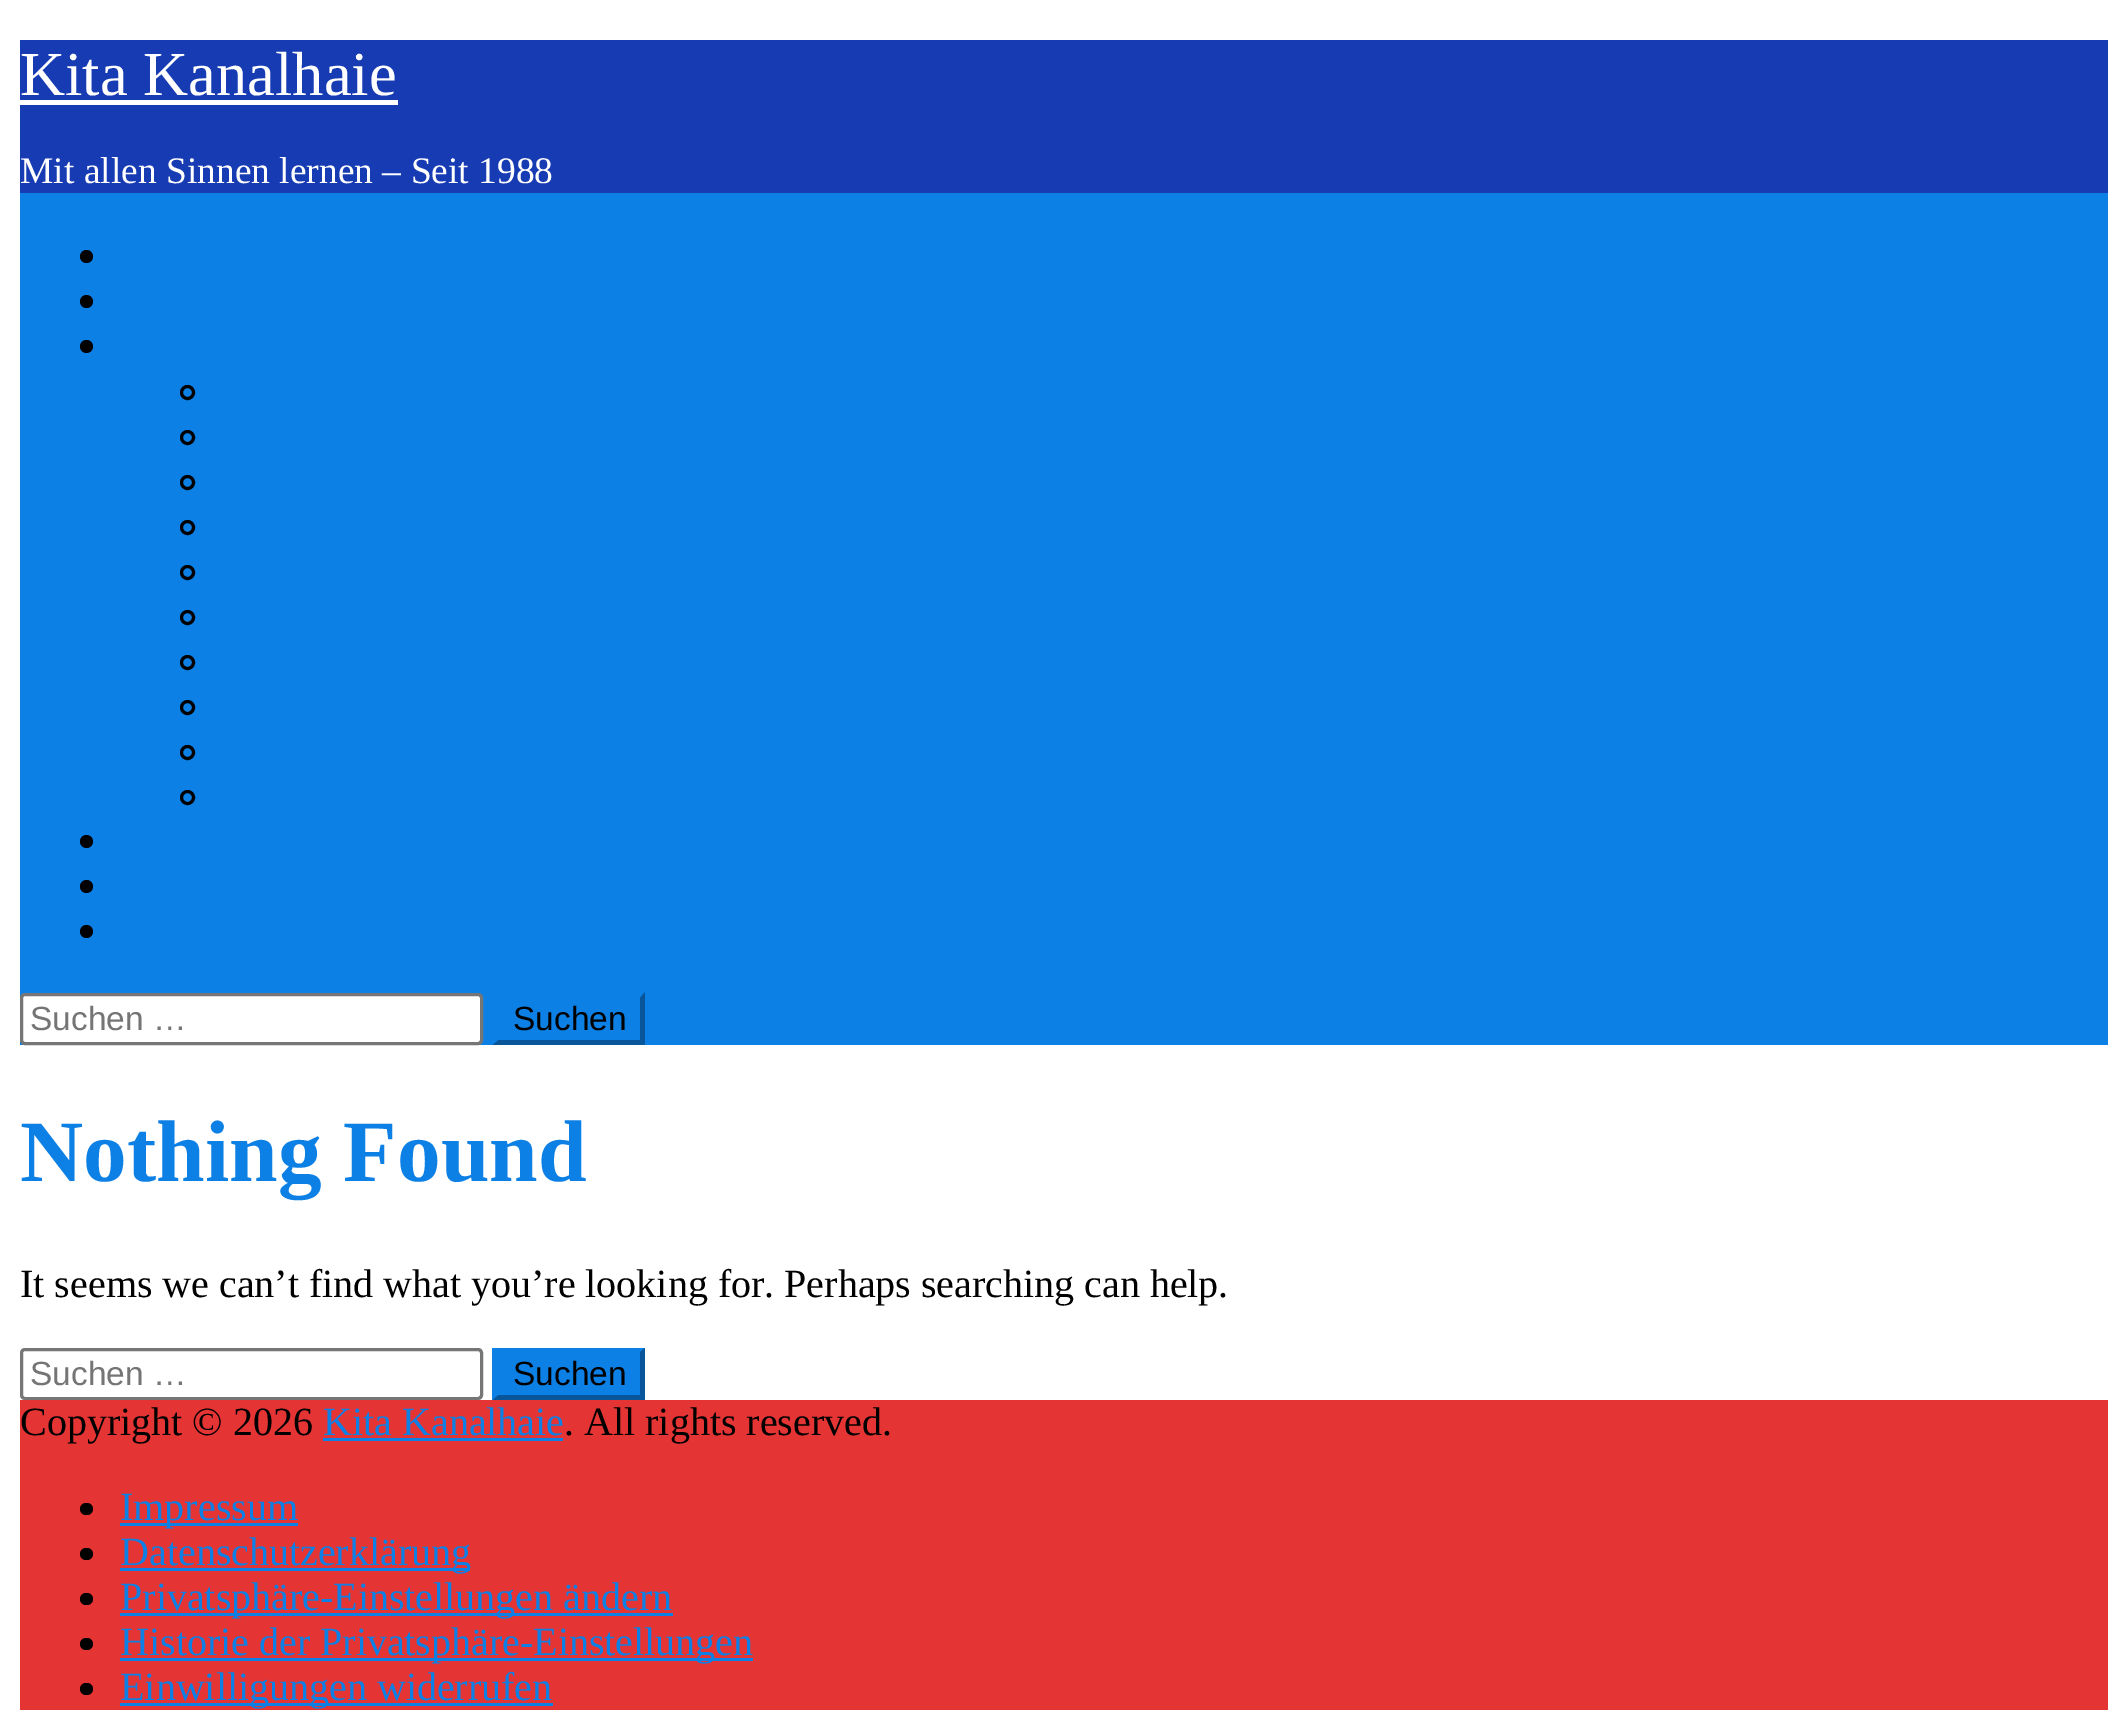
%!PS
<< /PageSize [2126 1722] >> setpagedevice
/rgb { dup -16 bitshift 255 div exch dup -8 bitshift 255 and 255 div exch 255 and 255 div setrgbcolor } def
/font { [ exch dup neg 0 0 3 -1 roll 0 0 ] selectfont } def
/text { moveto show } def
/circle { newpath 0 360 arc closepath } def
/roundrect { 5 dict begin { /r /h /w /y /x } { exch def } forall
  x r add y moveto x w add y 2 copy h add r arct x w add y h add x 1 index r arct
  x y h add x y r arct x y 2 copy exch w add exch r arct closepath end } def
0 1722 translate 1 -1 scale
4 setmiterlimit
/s1 { /LiberationSerif-Regular 62.5 font 16#FFFFFF rgb } def
/s2 { /LiberationSerif-Regular 37.5 font 16#FFFFFF rgb } def
/s3 { /LiberationSans-Regular 33.5 font 16#757575 rgb } def
/s4 { /LiberationSans-Regular 33.5 font 16#000000 rgb } def
/s5 { /LiberationSerif-Bold 87.5 font 16#0D80E5 rgb } def
/s6 { /LiberationSerif-Regular 40 font 16#000000 rgb } def
/s7 { /LiberationSerif-Regular 40 font 16#0D80E5 rgb } def
16#FFFFFF rgb
0 0 2126 1722 rectfill
16#0D80E5 rgb
20 193 2088 852 rectfill
16#173BB2 rgb
20 40 2088 153 rectfill
s1
(Kita Kanalhaie) 20 95 text
20 100 378 5 rectfill
s2
(Mit allen Sinnen lernen – Seit 1988) 20 183 text
16#000000 rgb
86.5 256.5 6.5 circle fill
86.5 301.5 6.5 circle fill
86.5 346.5 6.5 circle fill
3 setlinewidth
187.5 392.5 6 circle stroke
187.5 437.5 6 circle stroke
187.5 482.5 6 circle stroke
187.5 527.5 6 circle stroke
187.5 572.5 6 circle stroke
187.5 617.5 6 circle stroke
187.5 662.5 6 circle stroke
187.5 707.5 6 circle stroke
187.5 752.5 6 circle stroke
187.5 797.5 6 circle stroke
86.5 841.5 6.5 circle fill
86.5 886.5 6.5 circle fill
86.5 931.5 6.5 circle fill
16#FFFFFF rgb
21.5 994.5 460 49 3.5 roundrect gsave fill grestore
16#767676 rgb
stroke
s3
(Suchen …) 30 1030 text
16#095599 rgb
645 992 moveto 645 1045 lineto 640 1040 lineto 640 998 lineto closepath fill
645 1045 moveto 492 1045 lineto 498 1040 lineto 640 1040 lineto closepath fill
16#0D80E5 rgb
492 1045 moveto 492 992 lineto 498 998 lineto 498 1040 lineto closepath fill
s4
(Suchen) 513 1030 text
s5
(Nothing Found) 20 1181 text
s6
(It seems we can’t find what you’re looking for. Perhaps searching can help.) 20 1297 text
16#767676 rgb
21.5 1349.5 460 49 3.5 roundrect stroke
s3
(Suchen …) 30 1385 text
16#0D80E5 rgb
493 1348 152 52 rectfill
492 1348 moveto 645 1348 lineto 640 1352 lineto 498 1352 lineto closepath fill
16#095599 rgb
645 1348 moveto 645 1400 lineto 640 1395 lineto 640 1352 lineto closepath fill
645 1400 moveto 492 1400 lineto 498 1395 lineto 640 1395 lineto closepath fill
16#0D80E5 rgb
492 1400 moveto 492 1348 lineto 498 1352 lineto 498 1395 lineto closepath fill
s4
(Suchen) 513 1385 text
16#E53434 rgb
20 1400 2088 310 rectfill
s6
(Copyright © 2026) 20 1435 text
s7
(Kita Kanalhaie) 323 1435 text
323 1438 240 3 rectfill
s6
(. All rights reserved.) 564 1435 text
80 1503 13 12 6 roundrect fill
16#0D80E5 rgb
120 1523 178 3 rectfill
(Impressum) 120 1520 text
16#000000 rgb
80 1548 13 12 6 roundrect fill
16#0D80E5 rgb
120 1568 350 3 rectfill
(Datenschutzerklärung) 120 1565 text
16#000000 rgb
80 1593 13 12 6 roundrect fill
16#0D80E5 rgb
120 1613 553 3 rectfill
(Privatsphäre-Einstellungen ändern) 120 1610 text
16#000000 rgb
80 1638 13 12 6 roundrect fill
16#0D80E5 rgb
120 1658 633 3 rectfill
(Historie der Privatsphäre-Einstellungen) 120 1655 text
16#000000 rgb
80 1683 13 12 6 roundrect fill
16#0D80E5 rgb
120 1703 433 3 rectfill
(Einwilligungen widerrufen) 120 1700 text
showpage
